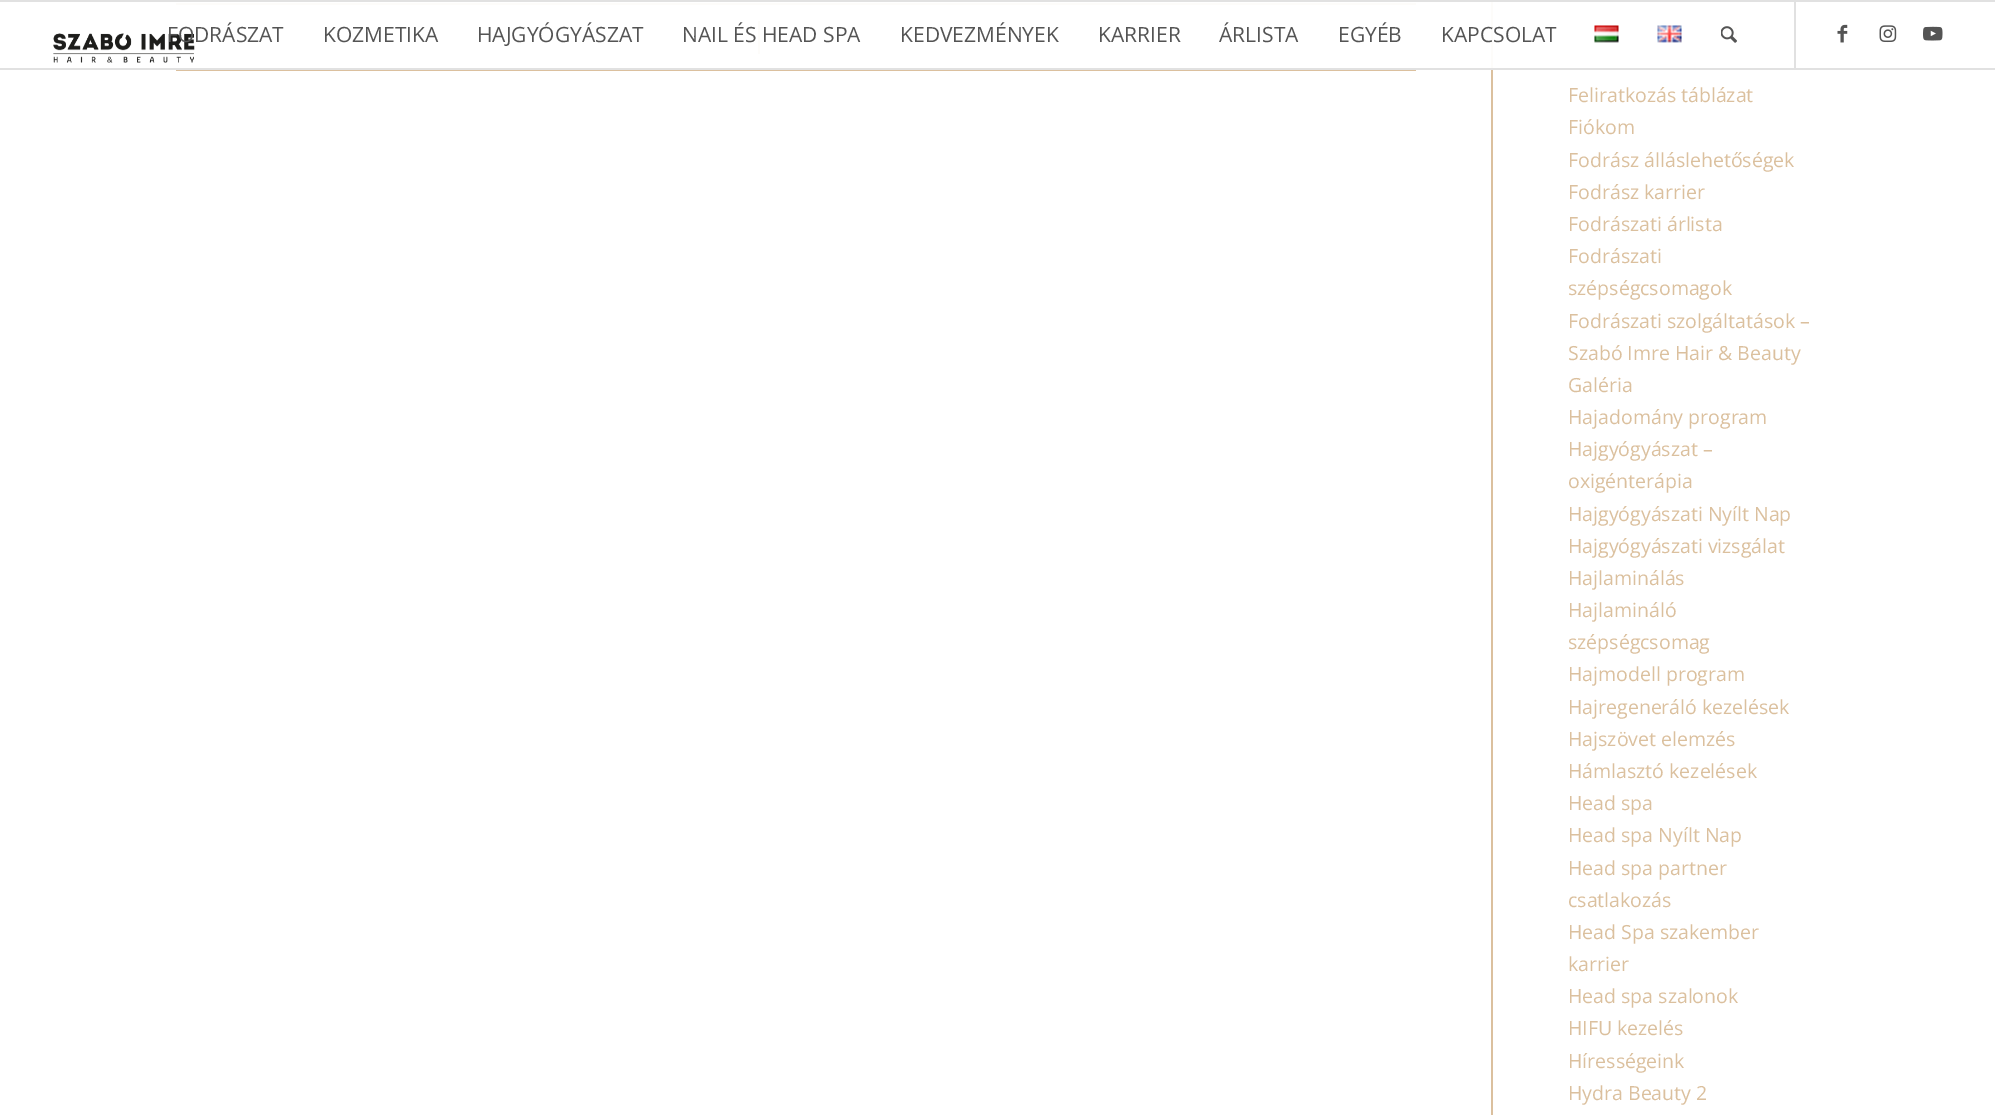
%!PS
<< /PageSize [1995 1115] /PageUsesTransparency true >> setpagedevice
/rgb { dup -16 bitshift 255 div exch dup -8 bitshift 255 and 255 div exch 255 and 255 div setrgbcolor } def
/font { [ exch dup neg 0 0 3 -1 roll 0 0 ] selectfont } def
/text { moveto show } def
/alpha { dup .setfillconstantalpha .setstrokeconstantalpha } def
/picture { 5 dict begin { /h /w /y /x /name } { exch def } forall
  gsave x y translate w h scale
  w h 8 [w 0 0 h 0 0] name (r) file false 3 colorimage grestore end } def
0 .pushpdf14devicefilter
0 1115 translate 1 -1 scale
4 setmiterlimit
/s1 { /OpenSans-Regular 21 font 16#545454 rgb } def
/s2 { /OpenSans-Regular 19.5 font 16#DBC09E rgb } def
16#FFFFFF rgb
0 0 1995 1115 rectfill
16#DBC09E rgb
176 3 1240 2 rectfill
758 21 2 33 rectfill
1491 0 2 1115 rectfill
0.95 alpha
16#FFFFFF rgb
176 2 1317 66 rectfill
1 alpha
16#E1E1E1 rgb
0 0 1995 2 rectfill
0 68 1995 2 rectfill
(pic1.raw) 53 33 142 30 picture
1794 2 2 66 rectfill
s1
(FODRÁSZAT) 167 42 text
(KOZMETIKA) 323 42 text
(HAJGYÓGYÁSZAT) 477 42 text
(NAIL ÉS HEAD SPA) 682 42 text
(KEDVEZMÉNYEK) 900 42 text
(KARRIER) 1098 42 text
(ÁRLISTA) 1219 42 text
(EGYÉB) 1338 42 text
(KAPCSOLAT) 1441 42 text
(pic2.raw) 1594 25 25 18 picture
(pic3.raw) 1657 25 25 18 picture
(pic4.raw) 1721 26 16 17 picture
(pic5.raw) 1837 24 11 19 picture
(pic6.raw) 1879 25 18 18 picture
(pic7.raw) 1923 26 20 15 picture
16#DBC09E rgb
176 70 1240 1 rectfill
s2
(Feliratkozás táblázat) 1568 102 text
(Fiókom) 1568 134 text
(Fodrász álláslehetőségek) 1568 167 text
(Fodrász karrier) 1568 199 text
(Fodrászati árlista) 1568 231 text
(Fodrászati) 1568 263 text
(szépségcsomagok) 1568 295 text
(Fodrászati szolgáltatások –) 1568 328 text
(Szabó Imre Hair & Beauty) 1568 360 text
(Galéria) 1568 392 text
(Hajadomány program) 1568 424 text
(Hajgyógyászat –) 1568 456 text
(oxigénterápia) 1568 488 text
(Hajgyógyászati Nyílt Nap) 1568 521 text
(Hajgyógyászati vizsgálat) 1568 553 text
(Hajlaminálás) 1568 585 text
(Hajlamináló) 1568 617 text
(szépségcsomag) 1568 649 text
(Hajmodell program) 1568 681 text
(Hajregeneráló kezelések) 1568 714 text
(Hajszövet elemzés) 1568 746 text
(Hámlasztó kezelések) 1568 778 text
(Head spa) 1568 810 text
(Head spa Nyílt Nap) 1568 842 text
(Head spa partner) 1568 875 text
(csatlakozás) 1568 907 text
(Head Spa szakember) 1568 939 text
(karrier) 1568 971 text
(Head spa szalonok) 1568 1003 text
(HIFU kezelés) 1568 1035 text
(Hírességeink) 1568 1068 text
(Hydra Beauty 2) 1568 1100 text
.poppdf14devicefilter showpage
